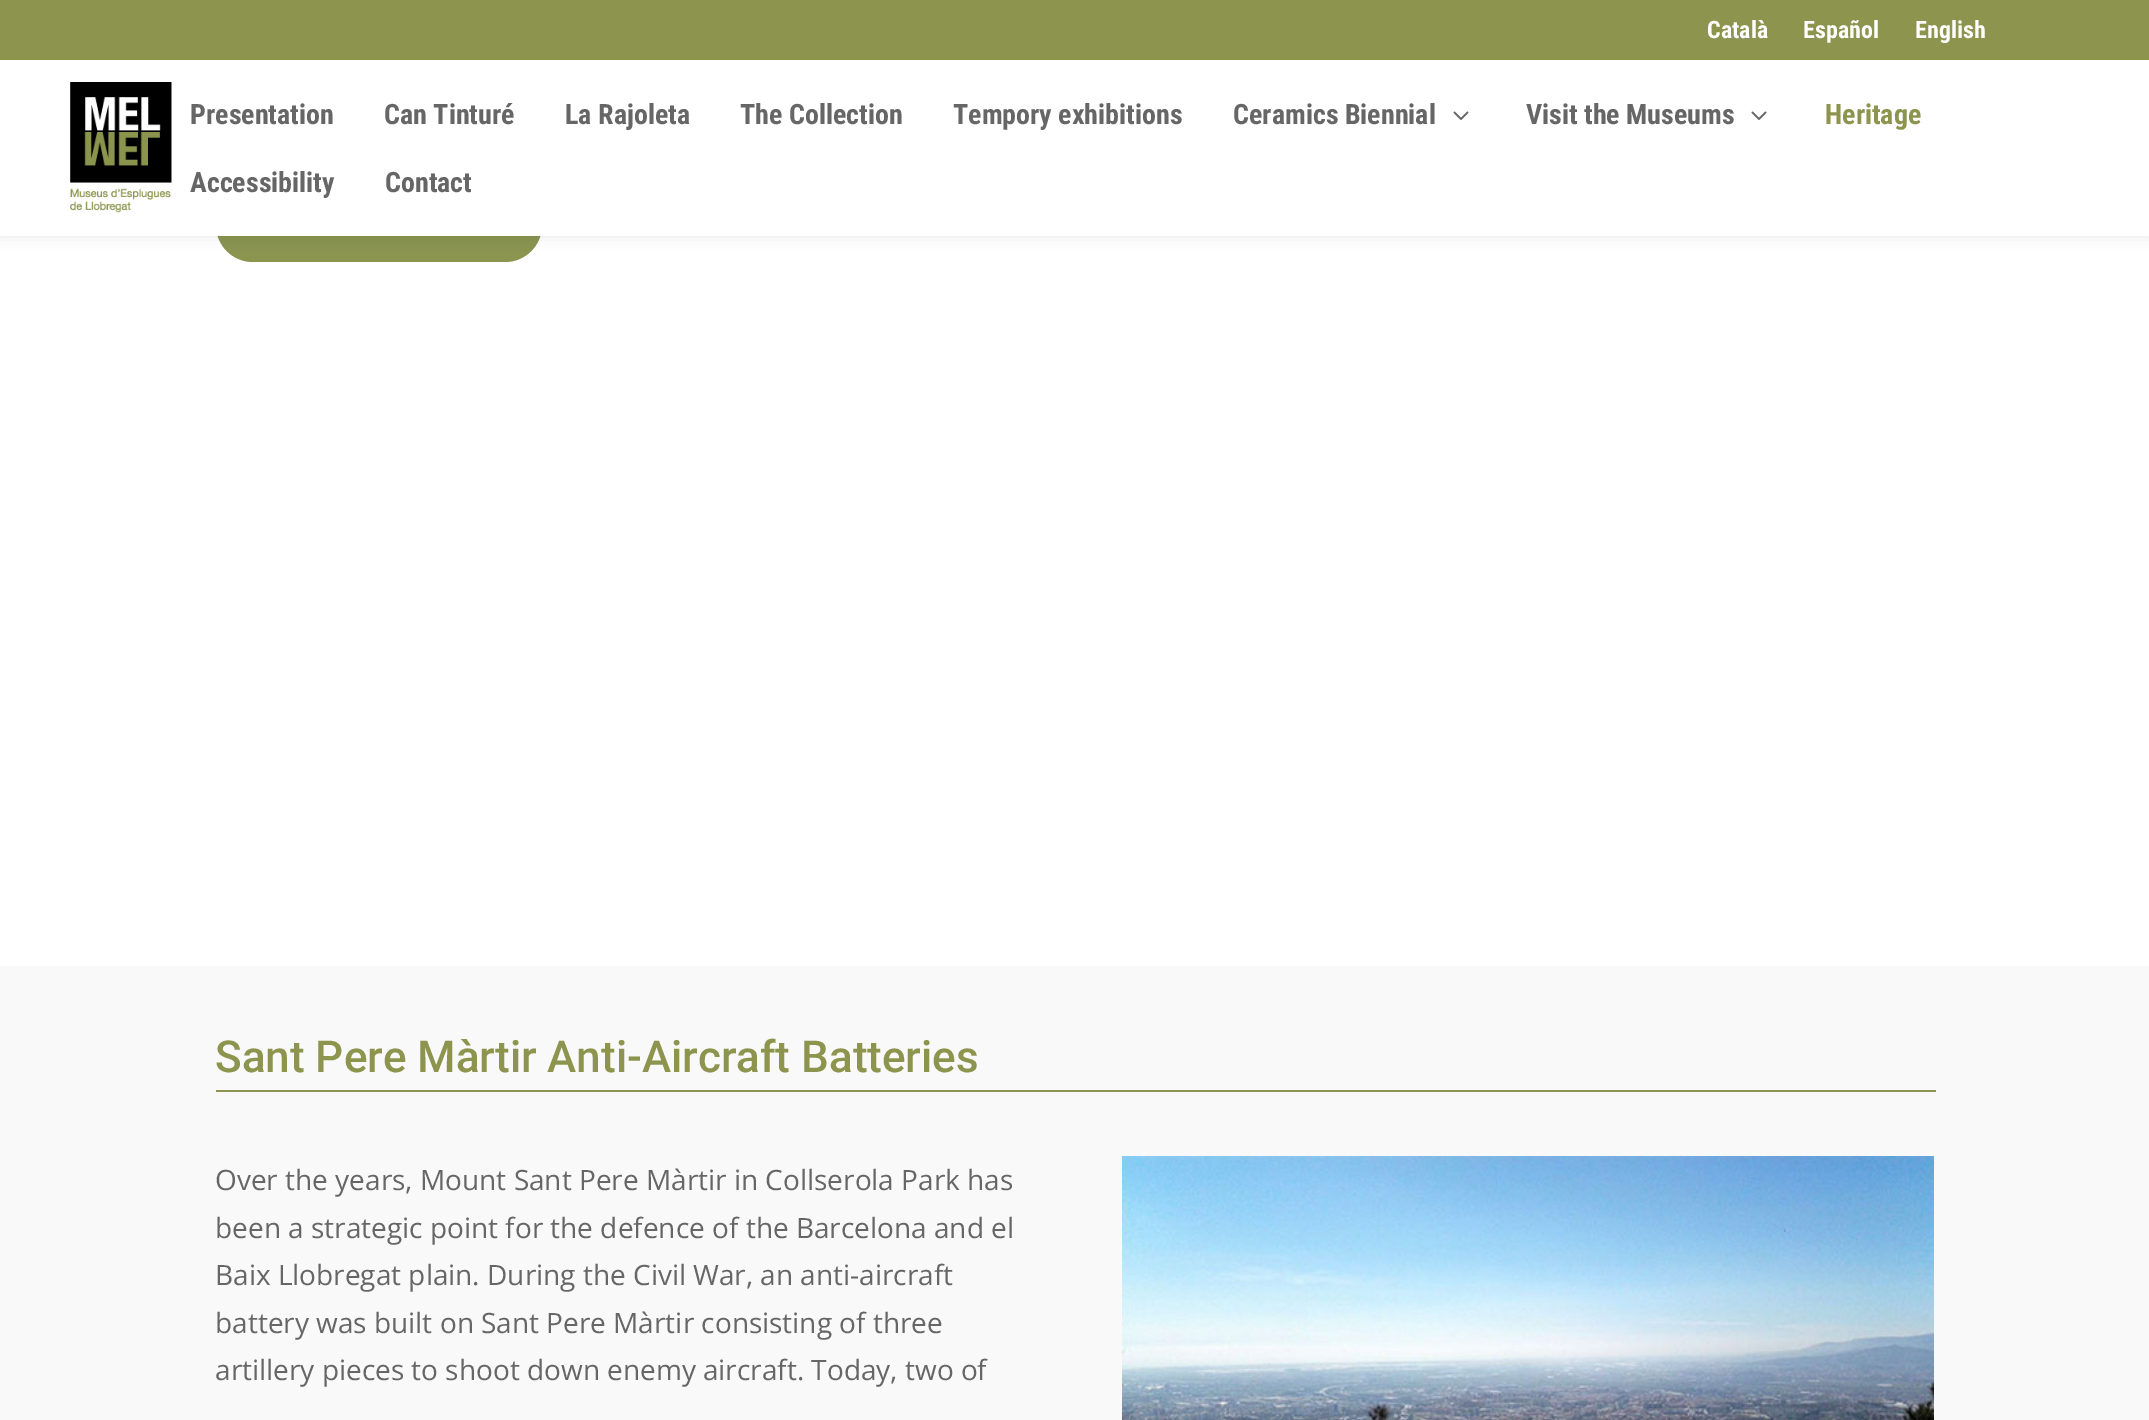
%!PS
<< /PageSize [2149 1420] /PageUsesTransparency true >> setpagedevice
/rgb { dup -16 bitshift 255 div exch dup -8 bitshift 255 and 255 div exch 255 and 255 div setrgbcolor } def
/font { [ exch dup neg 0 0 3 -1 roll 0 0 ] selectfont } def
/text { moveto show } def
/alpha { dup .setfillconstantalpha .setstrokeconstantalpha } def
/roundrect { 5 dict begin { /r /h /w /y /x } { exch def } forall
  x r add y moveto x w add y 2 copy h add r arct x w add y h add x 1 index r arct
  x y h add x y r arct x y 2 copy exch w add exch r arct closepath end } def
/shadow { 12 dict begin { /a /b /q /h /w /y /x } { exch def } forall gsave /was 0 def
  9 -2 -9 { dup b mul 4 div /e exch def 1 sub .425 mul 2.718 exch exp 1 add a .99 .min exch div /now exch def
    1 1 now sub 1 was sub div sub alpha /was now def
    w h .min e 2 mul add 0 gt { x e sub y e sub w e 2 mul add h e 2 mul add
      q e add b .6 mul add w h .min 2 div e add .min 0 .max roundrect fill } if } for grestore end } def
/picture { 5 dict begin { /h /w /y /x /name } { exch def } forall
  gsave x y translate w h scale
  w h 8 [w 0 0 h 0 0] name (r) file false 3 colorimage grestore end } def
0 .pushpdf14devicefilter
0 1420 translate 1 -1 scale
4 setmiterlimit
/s1 { /RobotoCondensed-Bold 24 font 16#FFFFFF rgb } def
/s2 { /RobotoCondensed-Bold 28 font 16#666666 rgb } def
/s3 { /RobotoCondensed-Bold 28 font 16#8C944D rgb } def
/s4 { /Roboto-Medium 44 font 16#8C944D rgb } def
/s5 { /OpenSans-Regular 28 font 16#666666 rgb } def
16#FFFFFF rgb
0 0 2149 1420 rectfill
16#8B9550 rgb
216 188 326 74 37 roundrect fill
16#000000 rgb
0 60 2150 176 0 7 0.1 shadow
16#8C944D rgb
0 0 2149 60 rectfill
s1
(Català) 1707 38 text
(Español) 1803 38 text
(English) 1915 38 text
0 60 2149 176 rectfill
(pic1.raw) 70 82 102 131 picture
s2
(Presentation) 190 124 text
(Can Tinturé) 384 124 text
(La Rajoleta) 565 124 text
(The Collection) 740 124 text
(Tempory exhibitions) 953 124 text
(Ceramics Biennial) 1233 124 text
(pic2.raw) 1453 111 16 9 picture
(Visit the Museums) 1526 124 text
(pic2.raw) 1751 111 16 9 picture
s3
(Heritage) 1825 124 text
s2
(Accessibility) 190 192 text
(Contact) 385 192 text
16#F9F9F9 rgb
0 966 2149 454 rectfill
s4
(Sant Pere Màrtir Anti-Aircraft Batteries) 215 1072 text
216 1090 1720 2 rectfill
s5
(Over the years, Mount Sant Pere Màrtir in Collserola Park has) 215 1190 text
(been a strategic point for the defence of the Barcelona and el) 215 1238 text
(Baix Llobregat plain. During the Civil War, an anti-aircraft) 215 1285 text
(battery was built on Sant Pere Màrtir consisting of three) 215 1333 text
(artillery pieces to shoot down enemy aircraft. Today, two of) 215 1380 text
(pic3.raw) 1122 1156 812 264 picture
.poppdf14devicefilter showpage
